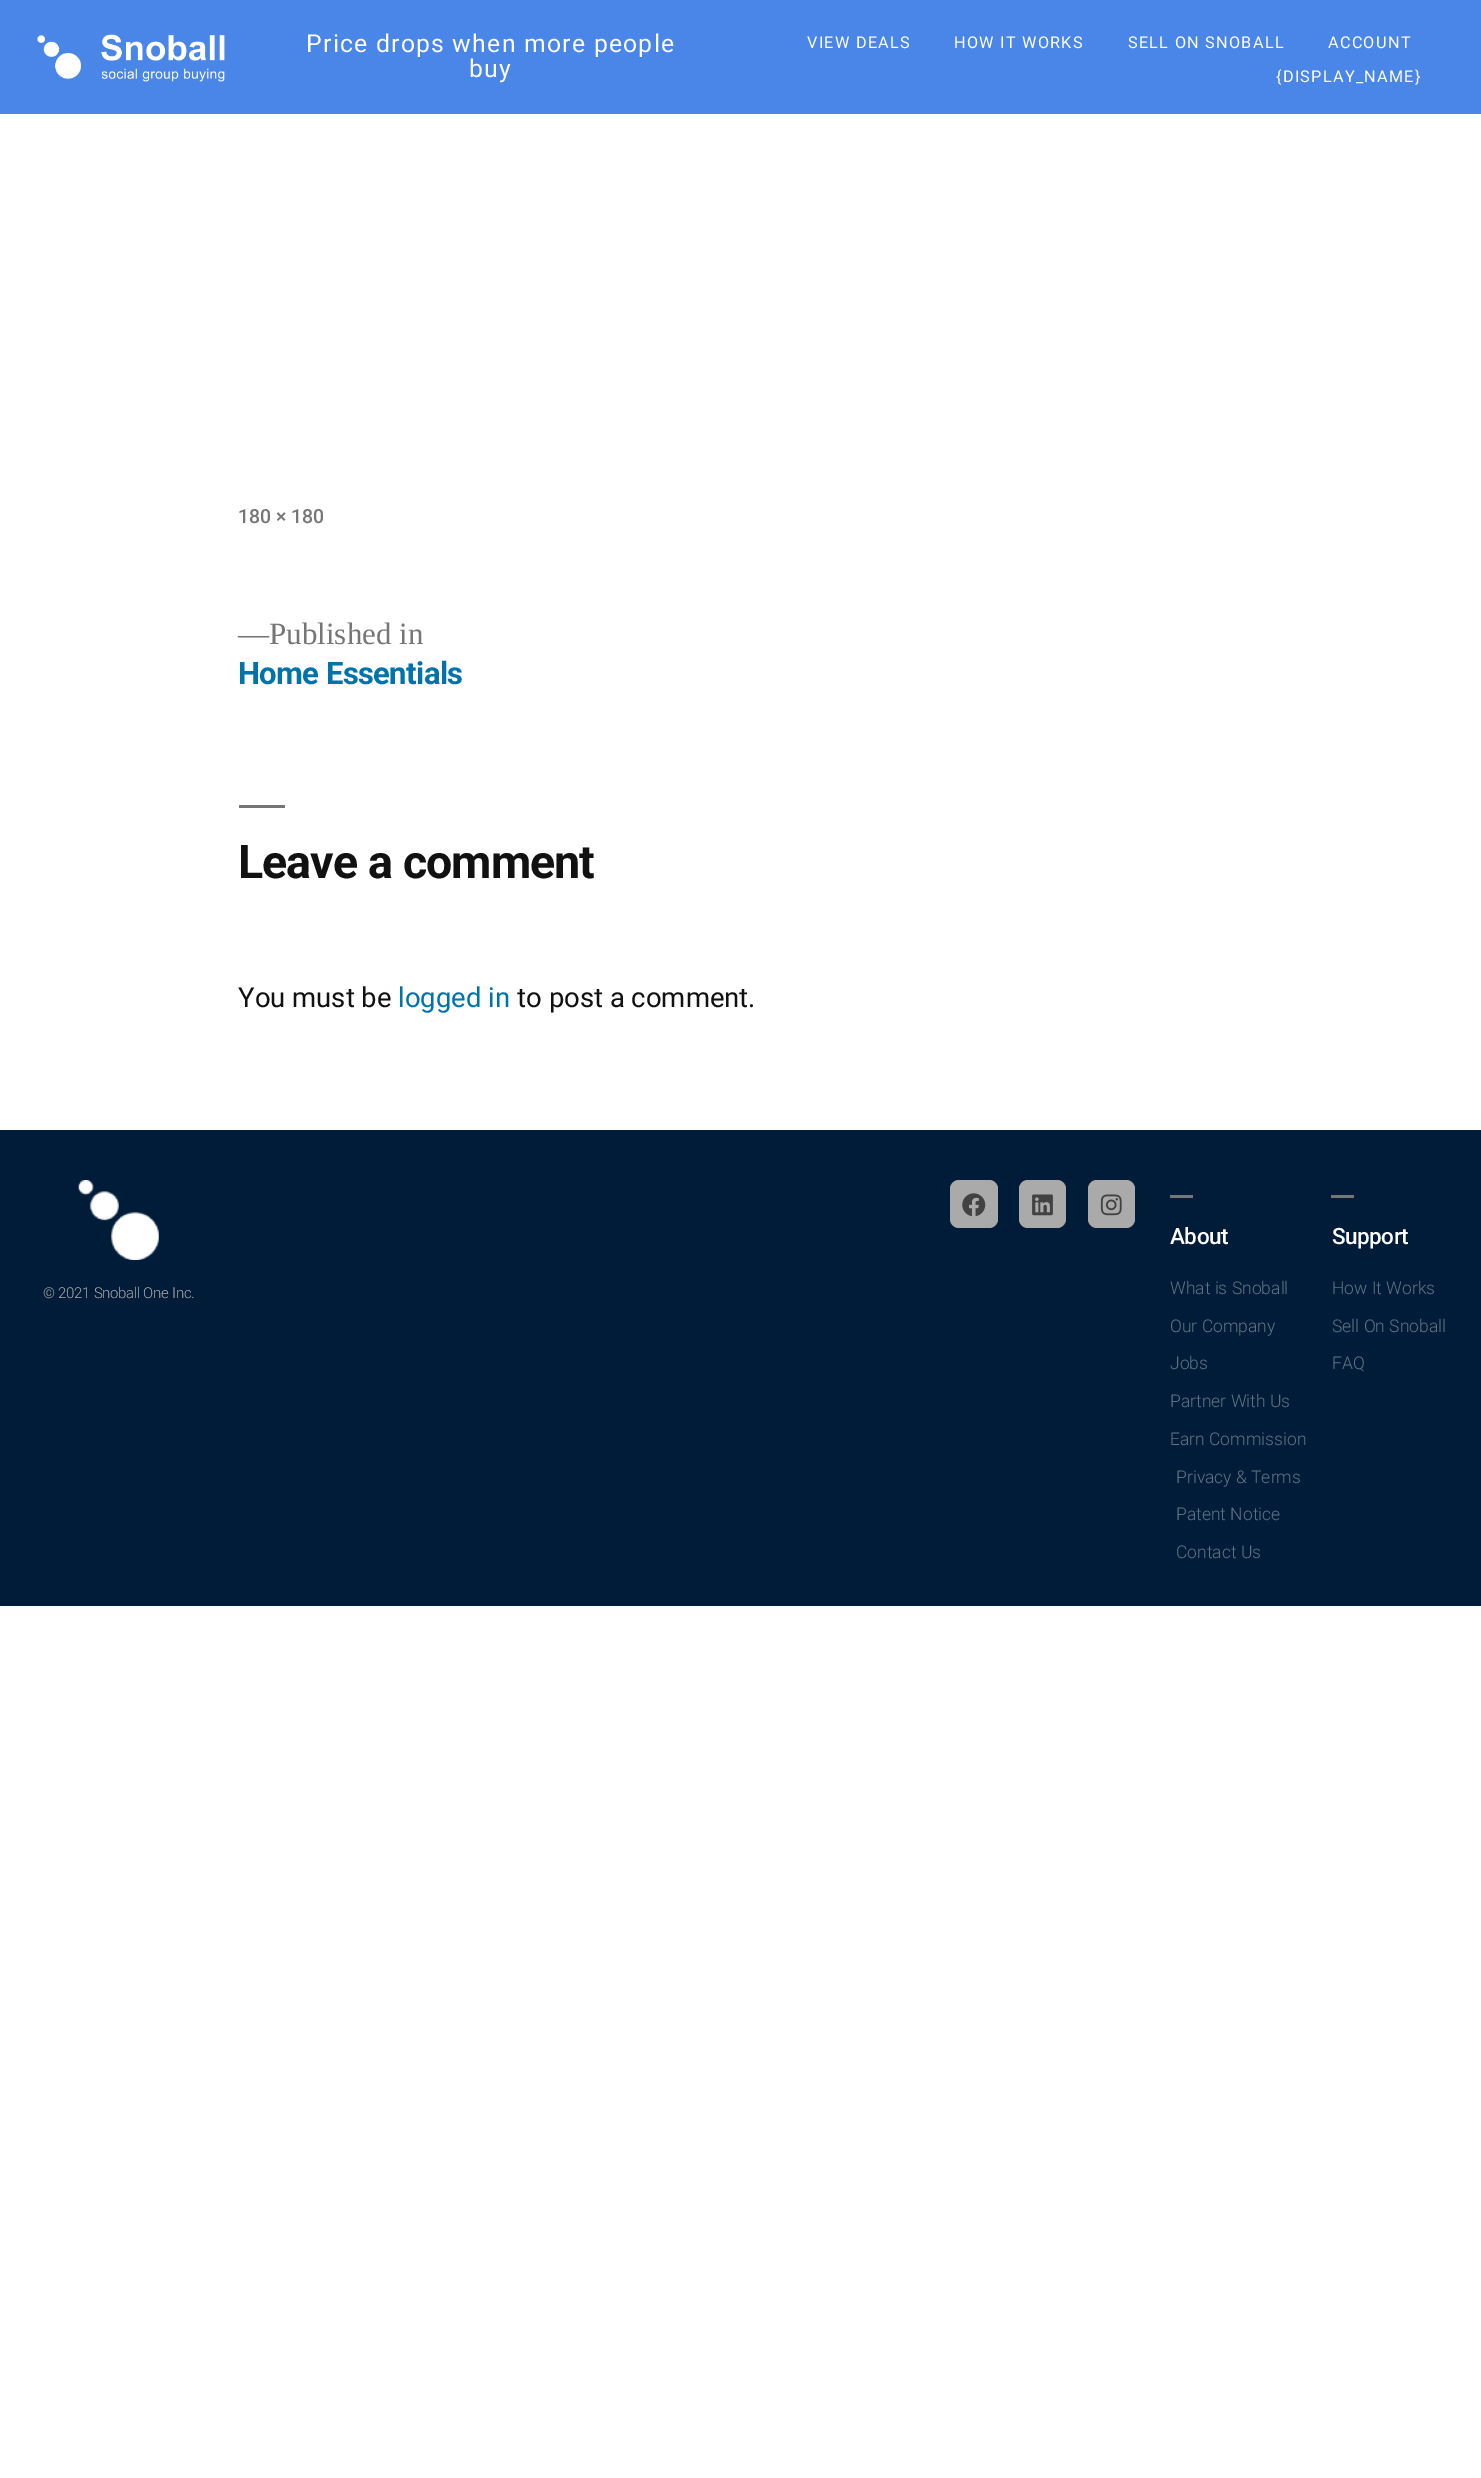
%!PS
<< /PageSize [1481 2478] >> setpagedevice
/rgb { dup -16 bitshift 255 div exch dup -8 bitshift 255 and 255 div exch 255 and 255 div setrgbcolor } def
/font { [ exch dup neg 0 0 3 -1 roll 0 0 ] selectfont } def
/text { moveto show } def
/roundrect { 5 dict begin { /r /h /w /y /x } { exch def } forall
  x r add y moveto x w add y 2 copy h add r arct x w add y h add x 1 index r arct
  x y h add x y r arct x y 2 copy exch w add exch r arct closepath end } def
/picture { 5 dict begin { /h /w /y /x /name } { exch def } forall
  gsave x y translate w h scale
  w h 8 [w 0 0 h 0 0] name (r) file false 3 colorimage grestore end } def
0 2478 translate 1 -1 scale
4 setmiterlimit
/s1 { /Roboto-Medium 19.5 font 16#767676 rgb } def
/s2 { /LiberationSerif-Regular 31 font 16#767676 rgb } def
/s3 { /Roboto-Regular 27.5 font 16#111111 rgb } def
/s4 { /Roboto-Regular 27.5 font 16#0073AA rgb } def
/s5 { /Roboto-Light 17.5 font 16#617284 rgb } def
16#FFFFFF rgb
0 0 1481 2478 rectfill
16#4A86E8 rgb
0 0 1481 114 rectfill
(pic1.raw) 37 34 188 48 picture
/Roboto-Regular 24.75 font
16#FFFFFF rgb
306 52 moveto 1.25 0 (Price drops when more people) ashow
469 77 moveto 1.25 0 (buy) ashow
/Roboto-Regular 16.25 font
807 48 moveto 1.25 0 (VIEW DEALS) ashow
954 48 moveto 1.25 0 (HOW IT WORKS) ashow
1128 48 moveto 1.25 0 (SELL ON SNOBALL) ashow
1328 48 moveto 1.25 0 (ACCOUNT) ashow
1276 82 moveto 1.25 0 ({DISPLAY_NAME}) ashow
s1
(180 × 180) 238 523 text
s2
(—Published in) 238 644 text
/Roboto-Bold 31 font
16#0073AA rgb
238 684 moveto -0.6 0 (Home Essentials) ashow
16#767676 rgb
239 805 46 3 rectfill
/Roboto-Bold 46.5 font
16#111111 rgb
238 878 moveto -0.9 0 (Leave a comment) ashow
s3
(You must be) 238 1007 text
s4
(logged in) 398 1007 text
s3
(to post a comment.) 517 1007 text
16#001C38 rgb
0 1130 1481 476 rectfill
16#AAAAAA rgb
950 1180 48 48 9 roundrect fill
(pic2.raw) 962 1193 24 24 picture
1019 1180 47 48 9 roundrect fill
(pic3.raw) 1032 1194 21 22 picture
1088 1180 47 48 9 roundrect fill
(pic4.raw) 1100 1194 22 22 picture
(pic5.raw) 78 1180 81 80 picture
/Roboto-Light 15 font
16#ADADAD rgb
43 1298 moveto -0.3 0 (© 2021 Snoball One Inc.) ashow
16#767676 rgb
1170 1195 23 3 rectfill
/Roboto-Medium 22.5 font
16#FFFFFF rgb
1170 1244 moveto -0.5 0 (About) ashow
s5
(What is Snoball) 1170 1294 text
(Our Company) 1170 1332 text
(Jobs) 1170 1369 text
(Partner With Us) 1170 1407 text
(Earn Commission) 1170 1445 text
(Privacy & Terms) 1176 1483 text
(Patent Notice) 1176 1520 text
(Contact Us) 1176 1558 text
16#767676 rgb
1331 1195 23 3 rectfill
/Roboto-Medium 22.5 font
16#FFFFFF rgb
1332 1244 moveto -0.5 0 (Support) ashow
s5
(How It Works) 1332 1294 text
(Sell On Snoball) 1332 1332 text
(FAQ) 1332 1369 text
showpage
